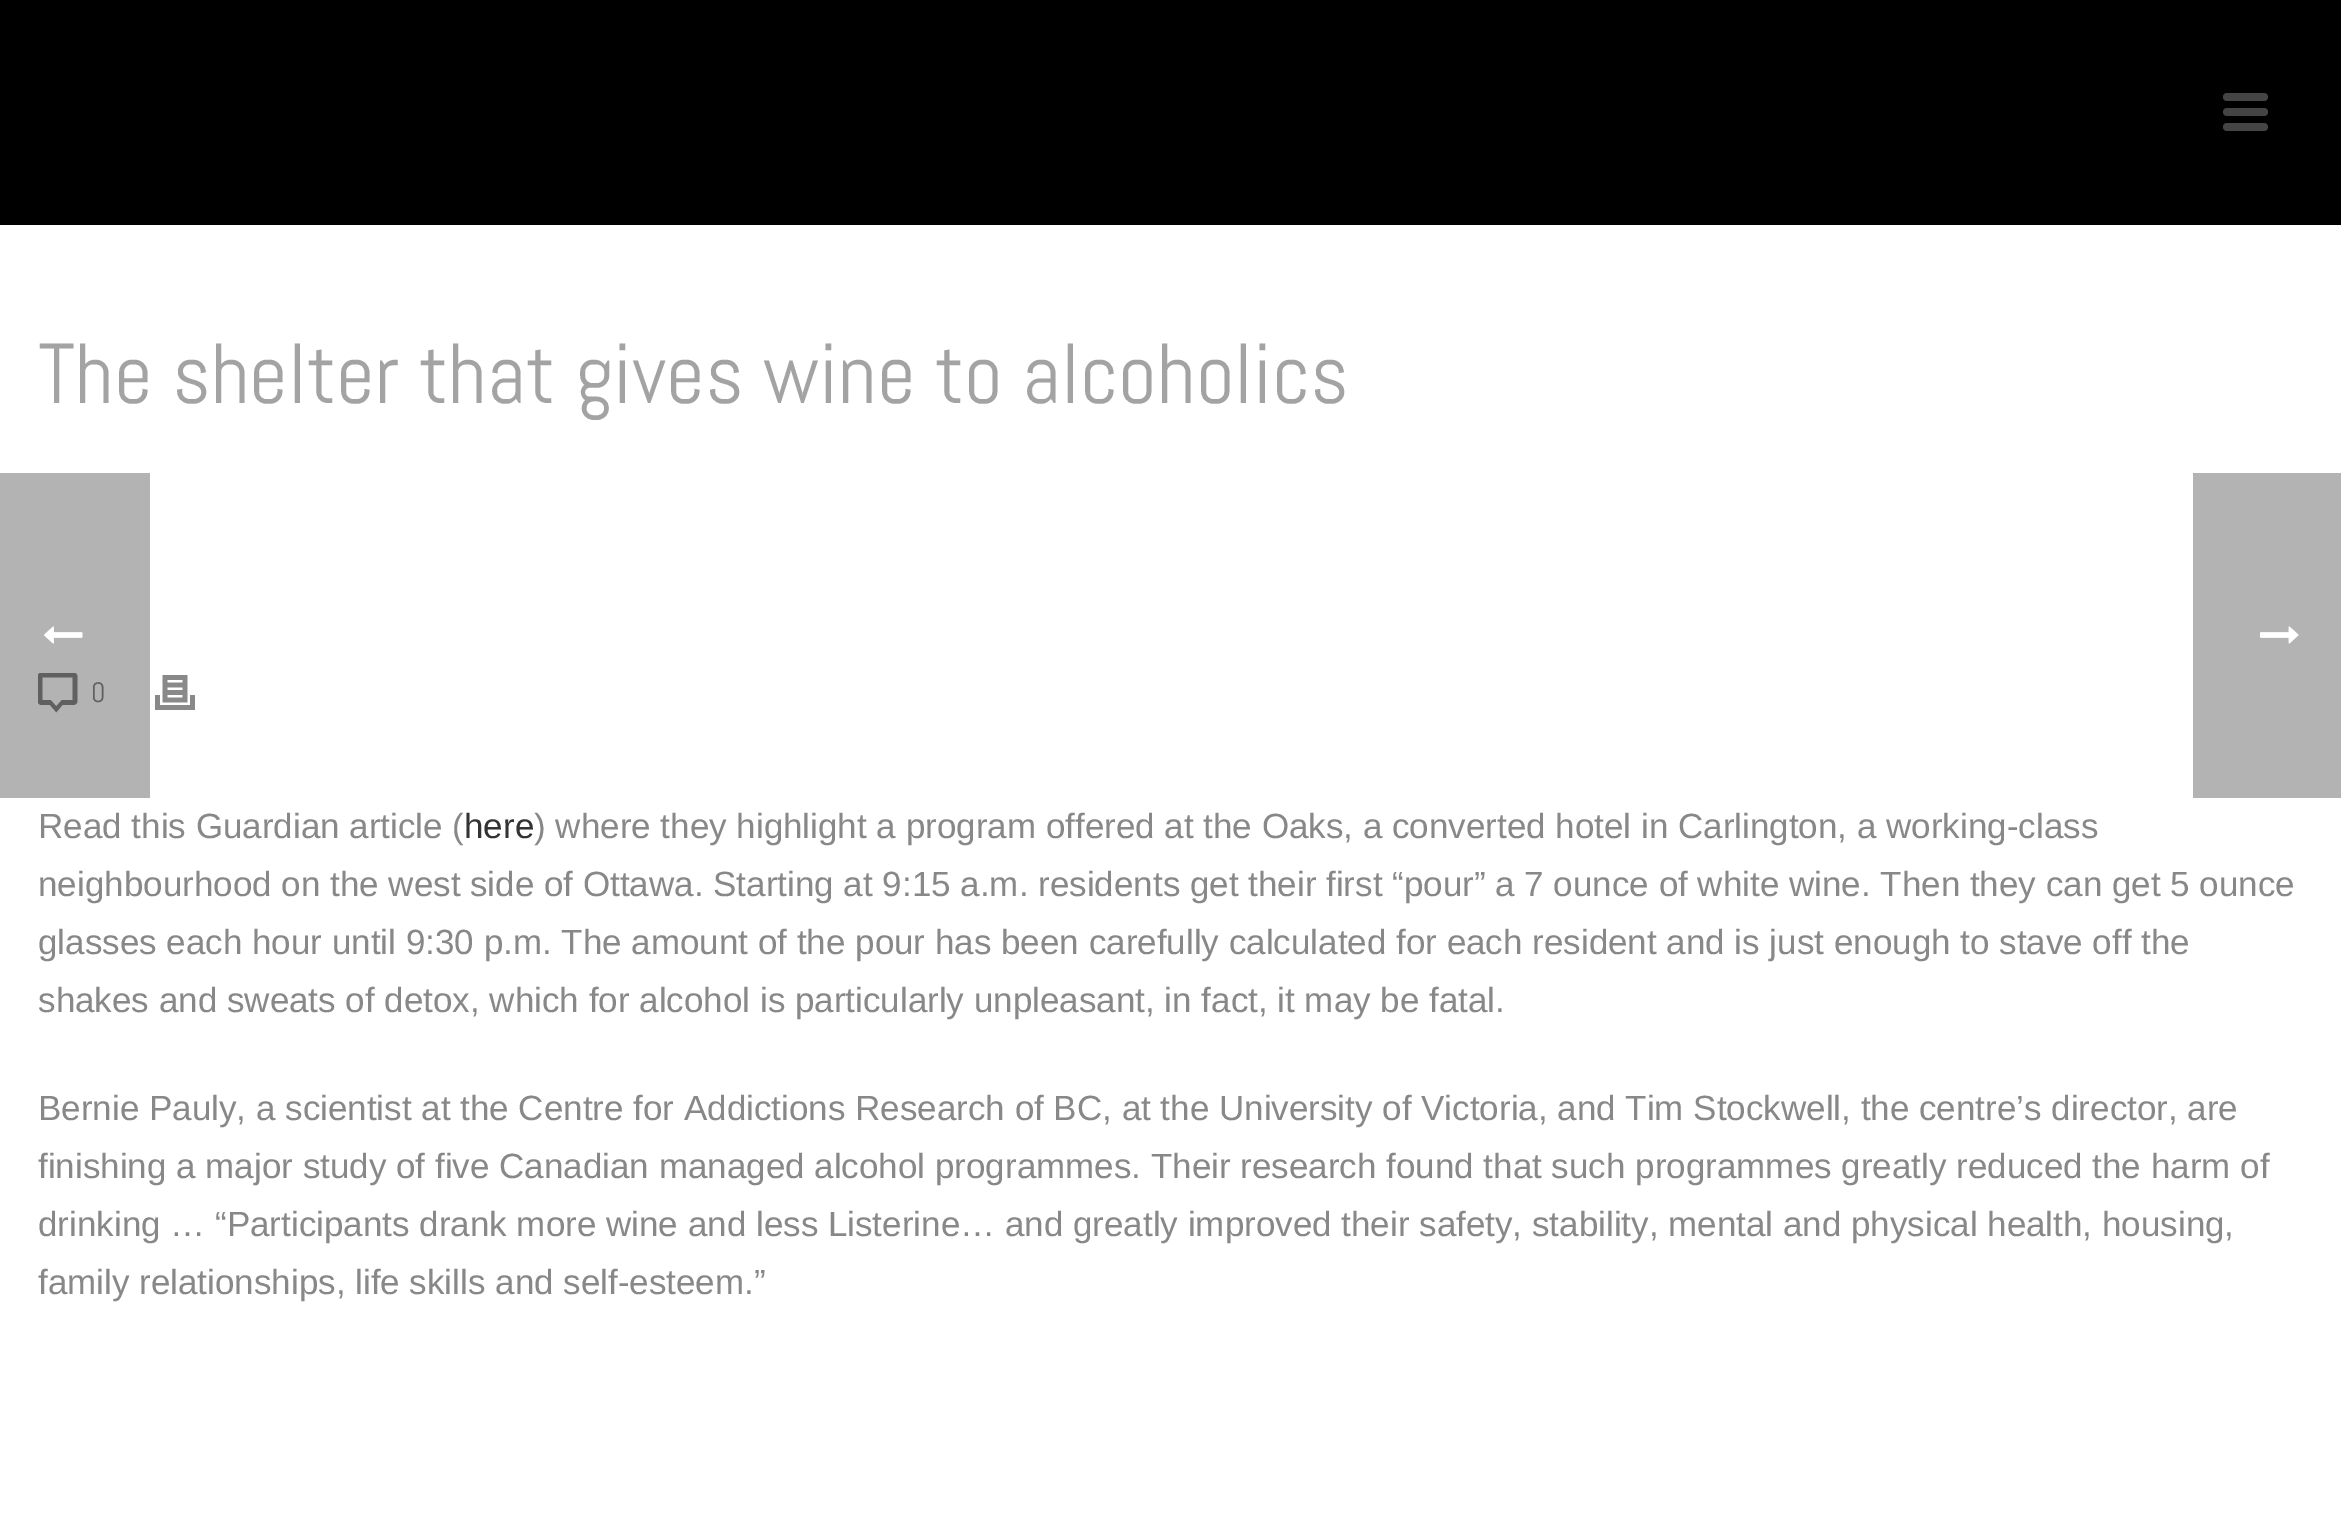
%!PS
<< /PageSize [2341 1519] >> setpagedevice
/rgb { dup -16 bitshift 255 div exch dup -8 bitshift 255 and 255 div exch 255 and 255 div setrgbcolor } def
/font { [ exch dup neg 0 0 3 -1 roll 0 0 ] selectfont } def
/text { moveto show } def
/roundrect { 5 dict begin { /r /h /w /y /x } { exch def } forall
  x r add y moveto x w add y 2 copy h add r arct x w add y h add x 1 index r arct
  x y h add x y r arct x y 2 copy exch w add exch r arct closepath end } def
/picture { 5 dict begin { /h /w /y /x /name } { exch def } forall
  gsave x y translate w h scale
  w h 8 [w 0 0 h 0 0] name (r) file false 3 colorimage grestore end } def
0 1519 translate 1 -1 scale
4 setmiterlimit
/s1 { /Abel-Regular 85 font 16#A3A3A3 rgb } def
/s2 { /Abel-Regular 28 font 16#606060 rgb } def
/s3 { /LiberationSans-Regular 35 font 16#888888 rgb } def
/s4 { /LiberationSans-Regular 35 font 16#333333 rgb } def
16#FFFFFF rgb
0 0 2341 1519 rectfill
16#B3B3B3 rgb
0 473 150 325 rectfill
16#000000 rgb
0 0 2341 225 rectfill
16#444444 rgb
2223 93 45 8 4 roundrect fill
2223 108 45 8 4 roundrect fill
2223 123 45 8 4 roundrect fill
s1
(The shelter that gives wine to alcoholics) 38 403 text
(pic1.raw) 38 673 40 40 picture
s2
(0) 91 702 text
(pic2.raw) 155 675 40 35 picture
s3
(Read this Guardian article \() 38 838 text
s4
(here) 464 838 text
s3
(\) where they highlight a program offered at the Oaks, a converted hotel in Carlington, a working-class) 534 838 text
(neighbourhood on the west side of Ottawa. Starting at 9:15 a.m. residents get their first “pour” a 7 ounce of white wine. Then they can get 5 ounce) 38 896 text
(glasses each hour until 9:30 p.m. The amount of the pour has been carefully calculated for each resident and is just enough to stave off the) 38 954 text
(shakes and sweats of detox, which for alcohol is particularly unpleasant, in fact, it may be fatal.) 38 1012 text
(Bernie Pauly, a scientist at the Centre for Addictions Research of BC, at the University of Victoria, and Tim Stockwell, the centre’s director, are) 38 1120 text
(finishing a major study of five Canadian managed alcohol programmes. Their research found that such programmes greatly reduced the harm of) 38 1178 text
(drinking … “Participants drank more wine and less Listerine… and greatly improved their safety, stability, mental and physical health, housing,) 38 1236 text
(family relationships, life skills and self-esteem.”) 38 1294 text
(pic3.raw) 44 626 39 18 picture
16#B3B3B3 rgb
2193 473 148 325 rectfill
(pic4.raw) 2260 626 39 18 picture
showpage
